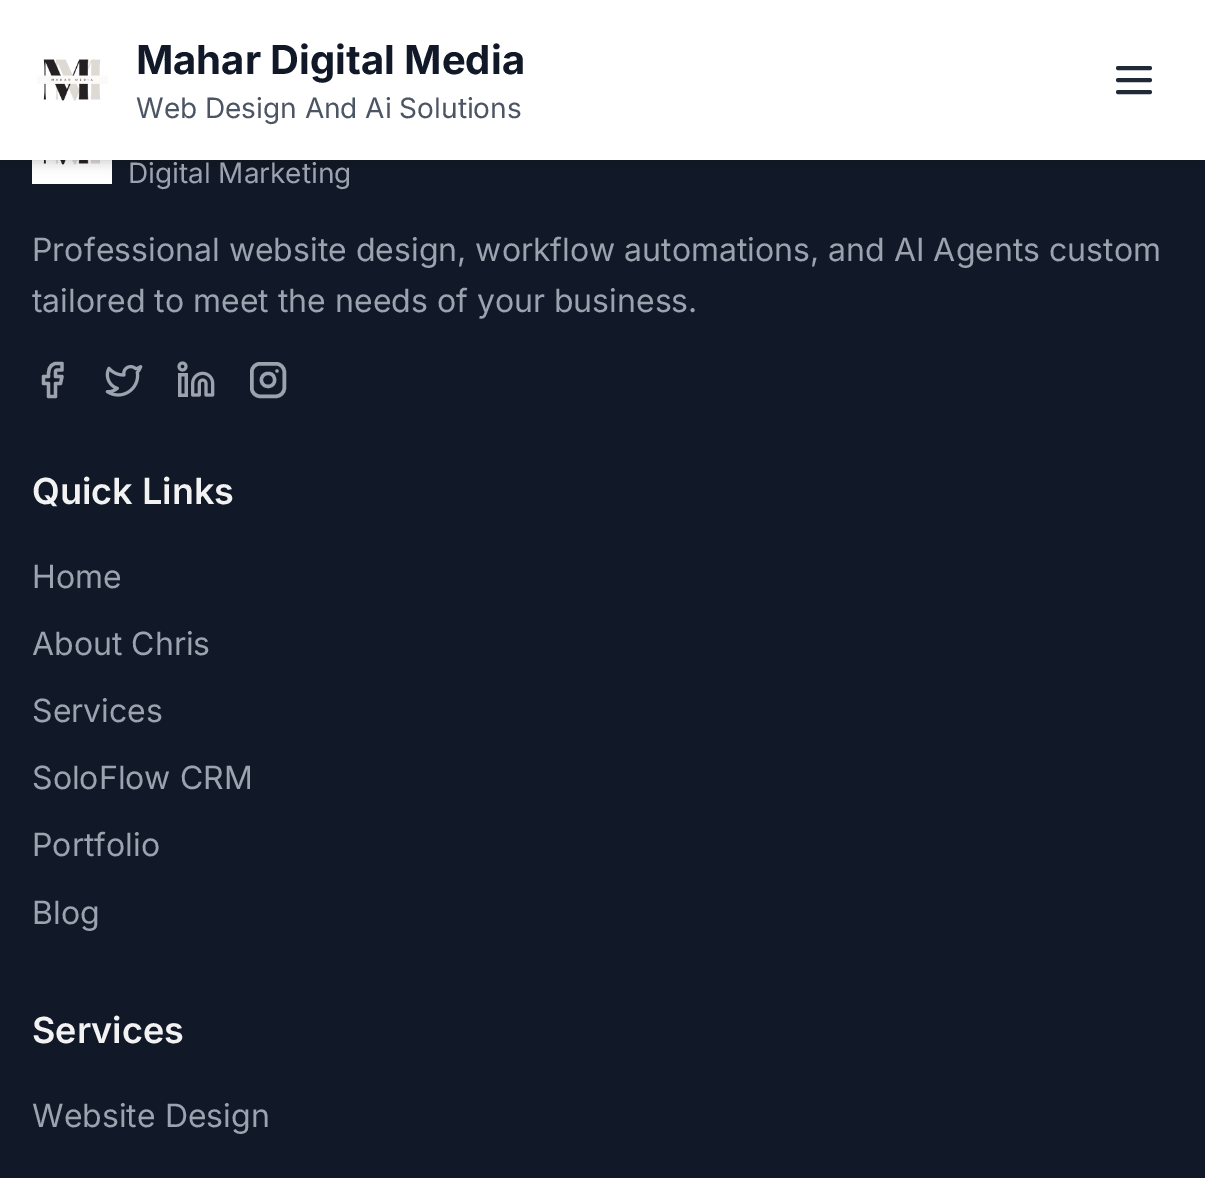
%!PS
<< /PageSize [1205 1178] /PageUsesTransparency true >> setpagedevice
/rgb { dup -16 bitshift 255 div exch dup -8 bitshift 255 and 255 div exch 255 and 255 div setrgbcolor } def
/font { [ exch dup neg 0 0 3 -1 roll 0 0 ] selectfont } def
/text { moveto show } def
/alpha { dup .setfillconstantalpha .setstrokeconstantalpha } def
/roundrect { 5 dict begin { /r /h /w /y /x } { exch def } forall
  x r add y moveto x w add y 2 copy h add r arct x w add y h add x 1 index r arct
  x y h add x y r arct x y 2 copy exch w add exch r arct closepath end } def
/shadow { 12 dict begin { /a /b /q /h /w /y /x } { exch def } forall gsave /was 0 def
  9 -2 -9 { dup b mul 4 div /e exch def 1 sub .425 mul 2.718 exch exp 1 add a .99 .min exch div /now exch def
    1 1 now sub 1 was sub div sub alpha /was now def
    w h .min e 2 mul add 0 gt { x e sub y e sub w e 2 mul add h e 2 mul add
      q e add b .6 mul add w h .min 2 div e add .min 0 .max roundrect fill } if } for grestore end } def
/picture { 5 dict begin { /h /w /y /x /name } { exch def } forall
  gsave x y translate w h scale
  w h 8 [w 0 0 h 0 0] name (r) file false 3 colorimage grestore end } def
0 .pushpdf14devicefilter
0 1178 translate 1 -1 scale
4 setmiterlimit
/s1 { /Inter-Bold 40 font 16#111827 rgb } def
/s2 { /Inter-Regular 28 font 16#4B5563 rgb } def
/s3 { /Inter-Regular 28 font 16#9CA3AF rgb } def
/s4 { /Inter-Regular 32 font 16#9CA3AF rgb } def
/s5 { /Inter-SemiBold 36 font 16#F2F2F2 rgb } def
16#111827 rgb
0 0 1205 1178 rectfill
(pic2.raw) 32 160 80 24 picture
16#000000 rgb
4 8 1198 152 0 4 0.1 shadow
2 10 1202 156 0 6 0.1 shadow
16#FFFFFF rgb
0 0 1205 160 rectfill
(pic1.raw) 37 59 71 42 picture
s1
(Mahar Digital Media) 136 74 text
s2
(Web Design And Ai Solutions) 136 118 text
16#1F2937 rgb
4 setlinewidth
1 setlinecap
1 setlinejoin
1118 80 moveto 1150 80 lineto 1118 68 moveto 1150 68 lineto 1118 92 moveto 1150 92 lineto stroke
s3
(Digital Marketing) 128 183 text
s4
(Professional website design, workflow automations, and AI Agents custom) 32 261 text
(tailored to meet the needs of your business.) 32 312 text
3.3 setlinewidth
62 363.5 moveto 55.5 363.5 lineto 48.5 365 48.5 371 48.5 376.5 curveto 43.5 376.5 lineto 43.5 383.5 lineto 48.5 383.5 lineto 48.5 396.5 lineto 55.5 396.5 lineto 55.5 383.5 lineto 60.5 383.5 lineto 62 376.5 lineto 55.5 376.5 lineto 55.5 369 54.5 370 62 370 curveto closepath stroke
(pic3.raw) 105 365 38 32 picture
(pic4.raw) 177 361 38 36 picture
3.5 setlinewidth
0 setlinecap
0 setlinejoin
251.75 363.75 32.5 32.5 8.25 roundrect stroke
3.3 setlinewidth
1 setlinecap
1 setlinejoin
274.5 379 moveto 276 387.5 263 389.5 261.5 381 curveto 260 372.5 273.5 370 274.5 379 curveto closepath 277 371 moveto 277 371 lineto stroke
s5
(Quick Links) 32 504 text
s4
(Home) 32 588 text
(About Chris) 32 655 text
(Services) 32 722 text
(SoloFlow CRM) 32 789 text
(Portfolio) 32 856 text
(Blog) 32 924 text
s5
(Services) 32 1043 text
s4
(Website Design) 32 1127 text
.poppdf14devicefilter showpage
